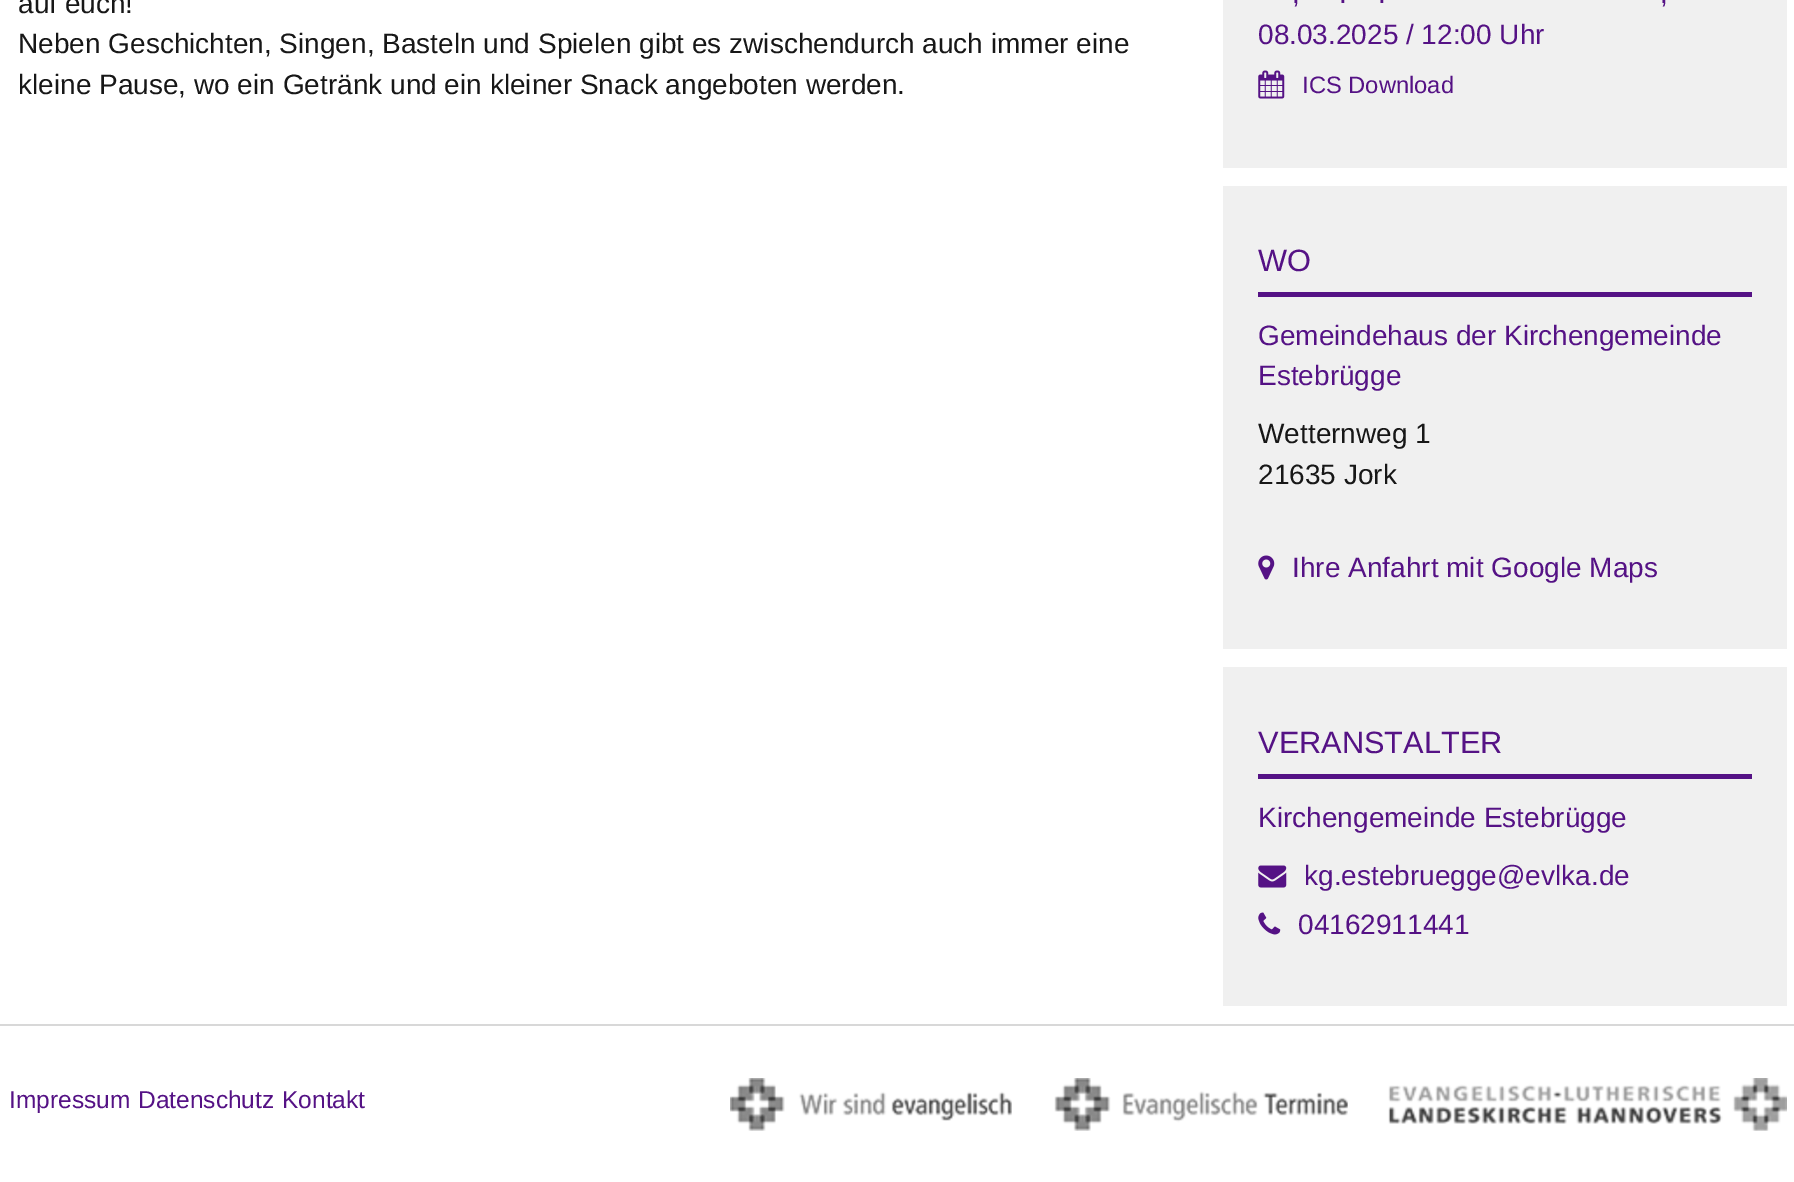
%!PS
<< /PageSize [1794 1182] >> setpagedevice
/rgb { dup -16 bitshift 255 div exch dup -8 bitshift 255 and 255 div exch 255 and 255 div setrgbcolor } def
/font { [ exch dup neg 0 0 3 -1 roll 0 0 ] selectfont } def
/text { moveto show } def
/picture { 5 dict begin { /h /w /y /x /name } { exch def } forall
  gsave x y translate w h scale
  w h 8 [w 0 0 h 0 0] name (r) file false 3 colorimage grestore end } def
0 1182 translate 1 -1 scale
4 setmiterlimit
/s1 { /LiberationSans-Regular 28 font 16#171717 rgb } def
/s2 { /LiberationSans-Regular 28 font 16#551285 rgb } def
/s3 { /LiberationSans-Regular 23.75 font 16#551285 rgb } def
/s4 { /LiberationSans-Regular 30.75 font 16#551285 rgb } def
/s5 { /LiberationSans-Regular 24.5 font 16#551285 rgb } def
16#FFFFFF rgb
0 0 1794 1182 rectfill
s1
(auf euch!) 18 13 text
(Neben Geschichten, Singen, Basteln und Spielen gibt es zwischendurch auch immer eine) 18 53 text
(kleine Pause, wo ein Getränk und ein kleiner Snack angeboten werden.) 18 94 text
16#F0F0F0 rgb
1223 0 564 168 rectfill
s2
(,) 1292 3 text
(.) 1339 3 text
(.) 1378 3 text
(,) 1660 3 text
(08.03.2025 / 12:00 Uhr) 1258 44 text
(pic1.raw) 1258 70 27 29 picture
s3
(ICS Download) 1302 93 text
16#F0F0F0 rgb
1223 186 564 463 rectfill
16#551285 rgb
1258 292 494 5 rectfill
s4
(WO) 1258 271 text
s2
(Gemeindehaus der Kirchengemeinde) 1258 345 text
(Estebrügge) 1258 385 text
s1
(Wetternweg 1) 1258 443 text
(21635 Jork) 1258 484 text
(pic2.raw) 1258 555 17 25 picture
s2
(Ihre Anfahrt mit Google Maps) 1292 577 text
16#F0F0F0 rgb
1223 667 564 339 rectfill
16#551285 rgb
1258 774 494 5 rectfill
s4
(VERANSTALTER) 1258 753 text
s2
(Kirchengemeinde Estebrügge) 1258 827 text
(pic3.raw) 1258 865 29 23 picture
(kg.estebruegge@evlka.de) 1304 885 text
(pic4.raw) 1258 912 23 23 picture
(04162911441) 1298 934 text
16#D8D8D8 rgb
0 1024 1794 2 rectfill
s5
(Impressum) 9 1108 text
(Datenschutz) 138 1108 text
(Kontakt) 282 1108 text
(pic5.raw) 730 1078 282 53 picture
(pic6.raw) 1054 1078 294 53 picture
(pic7.raw) 1388 1078 399 53 picture
showpage
